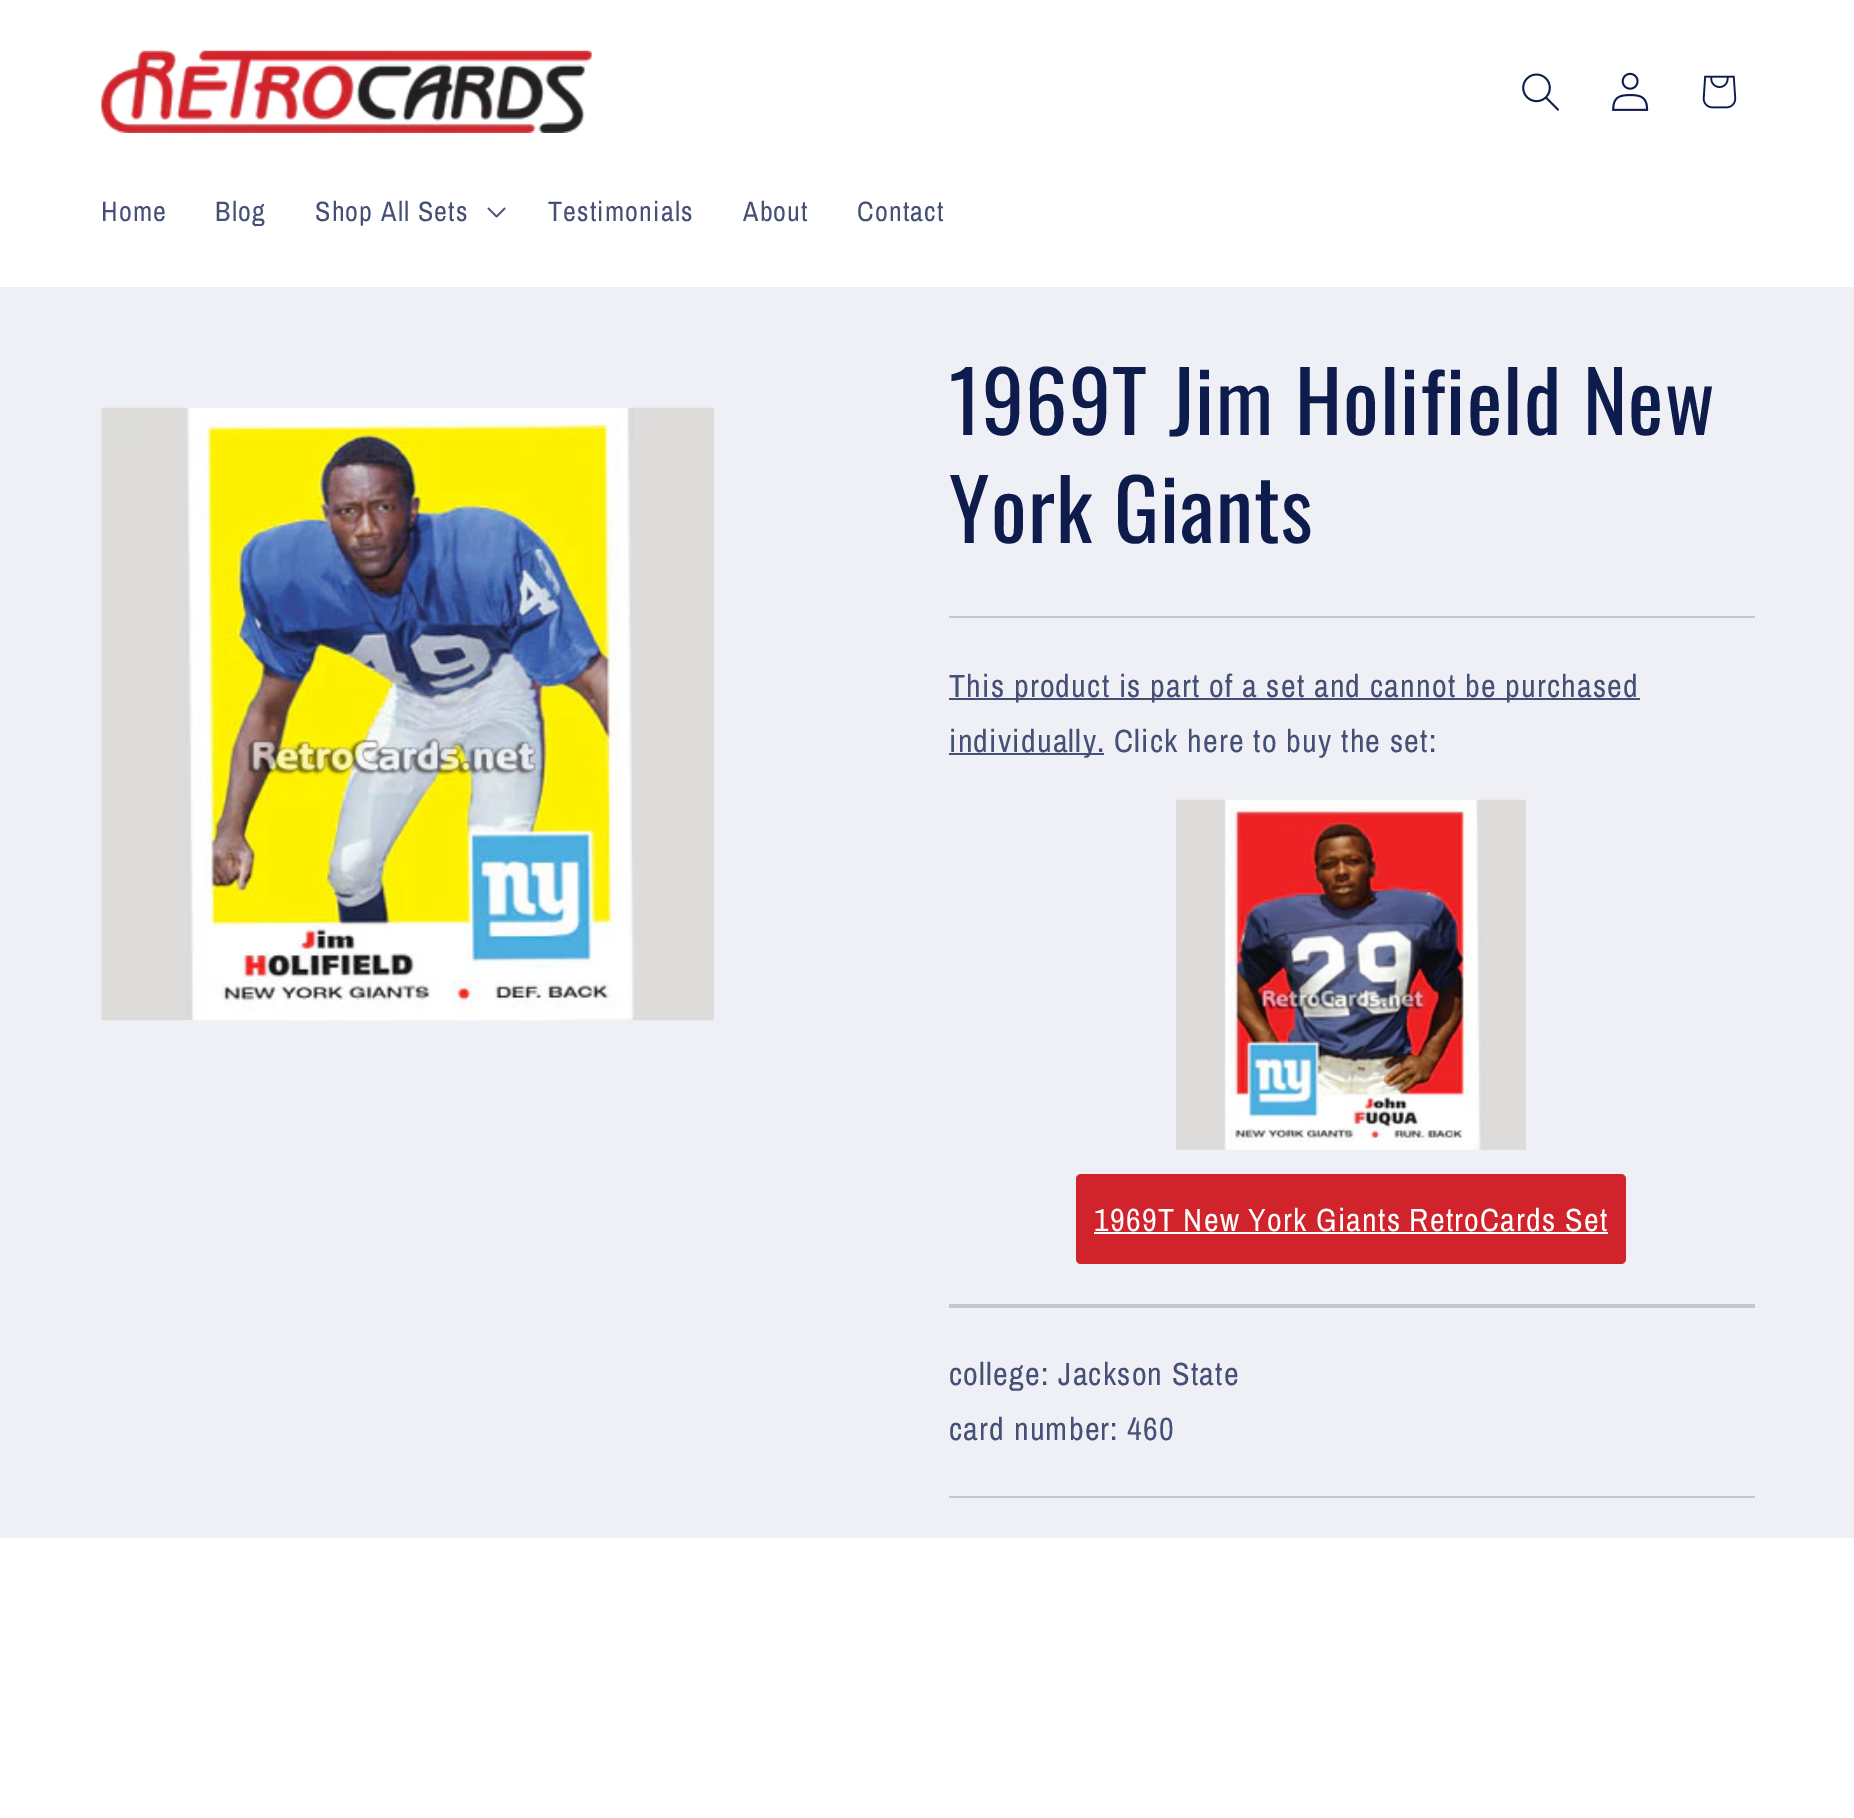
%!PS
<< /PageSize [1854 1818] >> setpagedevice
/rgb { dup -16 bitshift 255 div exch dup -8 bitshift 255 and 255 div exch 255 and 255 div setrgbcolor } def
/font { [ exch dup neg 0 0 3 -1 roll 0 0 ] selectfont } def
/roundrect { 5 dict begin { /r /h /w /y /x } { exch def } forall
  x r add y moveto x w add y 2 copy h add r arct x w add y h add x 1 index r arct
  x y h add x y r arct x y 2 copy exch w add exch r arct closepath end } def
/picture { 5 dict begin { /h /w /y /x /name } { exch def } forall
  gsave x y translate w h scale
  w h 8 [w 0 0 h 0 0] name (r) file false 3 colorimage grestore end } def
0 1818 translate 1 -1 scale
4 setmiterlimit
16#EFF0F5 rgb
0 0 1854 1818 rectfill
16#FFFFFF rgb
0 0 1854 287 rectfill
(pic1.raw) 101 50 491 83 picture
(pic2.raw) 1522 73 37 38 picture
(pic3.raw) 1612 72 37 39 picture
(pic4.raw) 1702 75 35 34 picture
/ArchivoNarrow-Regular 28 font
16#465077 rgb
101 221 moveto 1.2 0 (Home) ashow
215 221 moveto 1.2 0 (Blog) ashow
315 221 moveto 1.2 0 (Shop All Sets) ashow
(pic5.raw) 487 207 19 11 picture
548 221 moveto 1.2 0 (Testimonials) ashow
743 221 moveto 1.2 0 (About) ashow
857 221 moveto 1.2 0 (Contact) ashow
(pic6.raw) 101 407 613 614 picture
/Oswald-Regular 84 font
16#0E1B4D rgb
949 435 moveto 1.25 0 (1969T Jim Holifield New) ashow
949 543 moveto 1.25 0 (York Giants) ashow
16#C2C5D3 rgb
949 616 806 2 rectfill
16#465077 rgb
949 698 691 2 rectfill
/ArchivoNarrow-Regular 32.2 font
949 697 moveto 1.2 0 (This product is part of a set and cannot be purchased) ashow
949 753 155 2 rectfill
949 752 moveto 1.2 0 (individually. Click here to buy the set:) ashow
(pic7.raw) 1176 799 350 351 picture
16#D1232C rgb
1076 1174 550 90 5 roundrect fill
16#FFFFFF rgb
1094 1231 moveto 1.2 0 (1969T New York Giants RetroCards Set) ashow
1094 1232 514 2 rectfill
16#C2C5D3 rgb
949 1304 806 4 rectfill
16#465077 rgb
949 1385 moveto 1.2 0 (college: Jackson State) ashow
949 1440 moveto 1.2 0 (card number: 460) ashow
16#C2C5D3 rgb
949 1496 806 2 rectfill
16#FFFFFF rgb
0 1538 1854 280 rectfill
showpage
